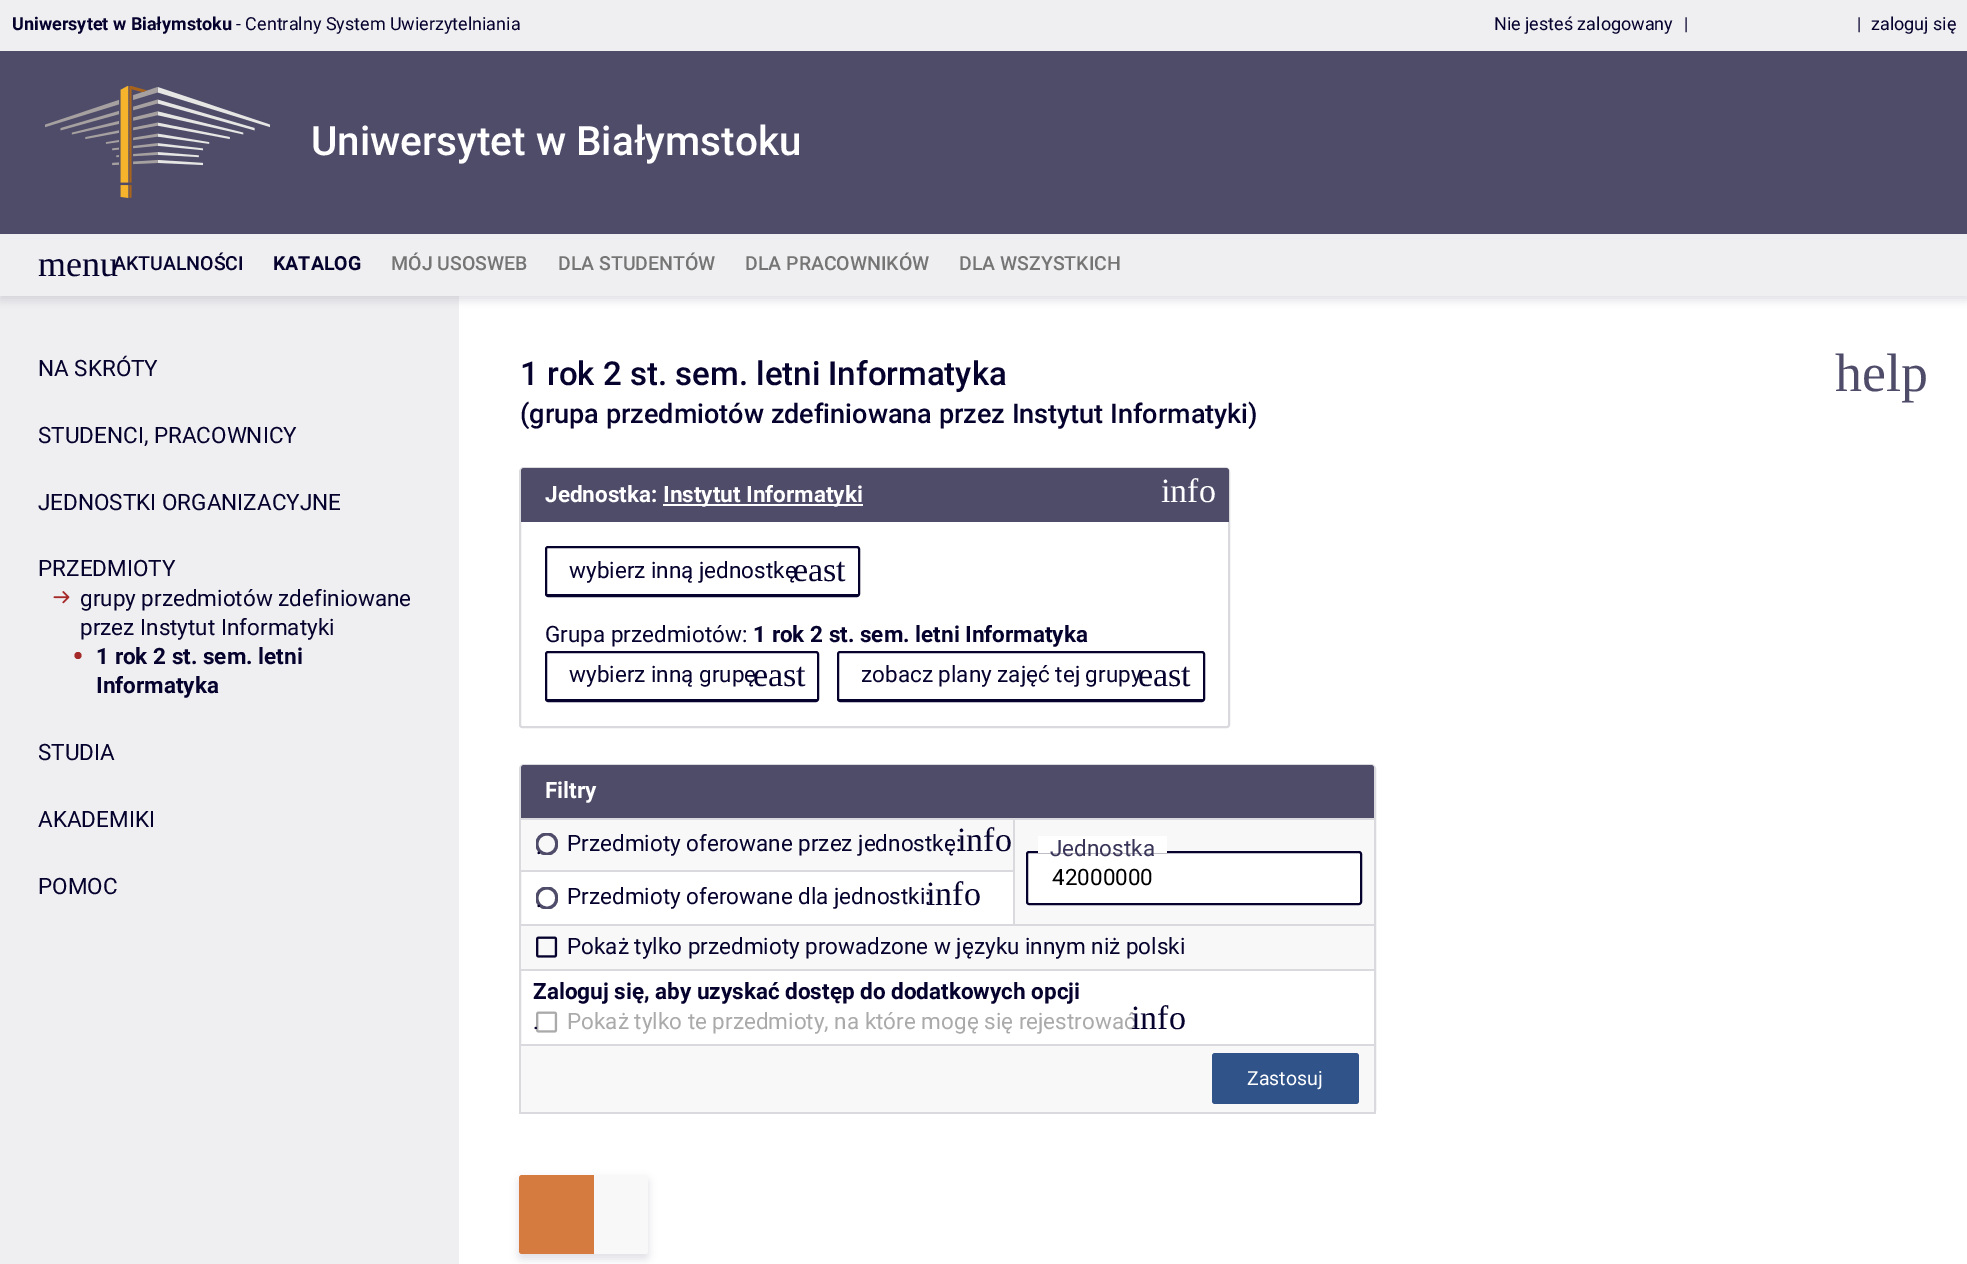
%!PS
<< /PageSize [1967 1264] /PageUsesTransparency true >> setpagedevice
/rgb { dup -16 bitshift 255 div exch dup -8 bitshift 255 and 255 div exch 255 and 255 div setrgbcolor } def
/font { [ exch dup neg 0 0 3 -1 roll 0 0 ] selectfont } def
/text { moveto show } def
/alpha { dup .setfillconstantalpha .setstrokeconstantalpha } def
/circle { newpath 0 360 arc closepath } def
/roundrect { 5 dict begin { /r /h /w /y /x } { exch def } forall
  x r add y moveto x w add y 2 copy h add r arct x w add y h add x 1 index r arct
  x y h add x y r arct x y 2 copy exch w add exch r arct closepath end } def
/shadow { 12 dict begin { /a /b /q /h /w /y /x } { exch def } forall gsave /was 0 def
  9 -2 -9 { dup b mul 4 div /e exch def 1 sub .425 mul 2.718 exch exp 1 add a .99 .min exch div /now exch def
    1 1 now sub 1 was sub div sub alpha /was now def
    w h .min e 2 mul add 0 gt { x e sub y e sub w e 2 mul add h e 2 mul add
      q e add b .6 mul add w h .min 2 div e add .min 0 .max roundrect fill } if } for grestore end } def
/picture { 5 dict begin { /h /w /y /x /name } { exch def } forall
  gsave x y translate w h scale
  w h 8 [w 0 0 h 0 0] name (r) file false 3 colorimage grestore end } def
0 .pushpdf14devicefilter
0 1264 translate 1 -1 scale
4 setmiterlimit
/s1 { /Roboto-Bold 18 font 16#06022E rgb } def
/s2 { /Roboto-Regular 18 font 16#06022E rgb } def
/s3 { /Roboto-Medium 40.5 font 16#FFFFFF rgb } def
/s4 { /LiberationSerif-Regular 36 font 16#06022E rgb } def
/s5 { /Roboto-Medium 19.5 font 16#06022E rgb } def
/s6 { /Roboto-Bold 19.5 font 16#06022E rgb } def
/s7 { /Roboto-Medium 19.5 font 16#757575 rgb } def
/s8 { /Roboto-Regular 22.5 font 16#06022E rgb } def
/s9 { /Roboto-Bold 22.5 font 16#06022E rgb } def
/s10 { /Roboto-Medium 33 font 16#06022E rgb } def
/s11 { /Roboto-Medium 27 font 16#06022E rgb } def
/s12 { /LiberationSerif-Regular 54 font 16#4F4C6A rgb } def
/s13 { /Roboto-Bold 22.5 font 16#FFFFFF rgb } def
/s14 { /LiberationSerif-Regular 34 font 16#FFFFFF rgb } def
/s15 { /LiberationSerif-Regular 34 font 16#06022E rgb } def
/s16 { /Roboto-Regular 22.5 font 16#383558 rgb } def
/s17 { /Roboto-Regular 22.5 font 16#000000 rgb } def
/s18 { /Roboto-Regular 22.5 font 16#AAAAAA rgb } def
/s19 { /Roboto-Regular 19.5 font 16#FFFFFF rgb } def
16#EFEFF1 rgb
0 0 1967 1264 rectfill
s1
(Uniwersytet w Białymstoku) 12 30 text
s2
(- Centralny System Uwierzytelniania) 236 30 text
(Nie jesteś zalogowany) 1494 30 text
(|) 1684 30 text
(|) 1857 30 text
(zaloguj się) 1871 30 text
16#4F4C6A rgb
0 51 1967 183 rectfill
(pic1.raw) 45 86 225 112 picture
s3
(Uniwersytet w Białymstoku) 311 155 text
459 296 1508 968 rectfill
16#060633 rgb
0 239 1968 61 0 4.5 0.12 shadow
16#EFEFF1 rgb
0 234 1967 62 rectfill
s4
(menu) 38 276 text
s5
(AKTUALNOŚCI) 113 270 text
s6
(KATALOG) 273 270 text
s7
(MÓJ USOSWEB) 391 270 text
(DLA STUDENTÓW) 558 270 text
(DLA PRACOWNIKÓW) 745 270 text
(DLA WSZYSTKICH) 959 270 text
s8
(NA SKRÓTY) 38 376 text
(STUDENCI, PRACOWNICY) 38 443 text
(JEDNOSTKI ORGANIZACYJNE) 38 510 text
(PRZEDMIOTY) 38 576 text
(pic2.raw) 53 591 17 13 picture
(grupy przedmiotów zdefiniowane) 80 606 text
(przez Instytut Informatyki) 80 635 text
16#A62929 rgb
78 655.5 3.5 circle fill
s9
(1 rok 2 st. sem. letni) 96 664 text
(Informatyka) 96 693 text
s8
(STUDIA) 38 760 text
(AKADEMIKI) 38 827 text
(POMOC) 38 894 text
s10
(1 rok 2 st. sem. letni Informatyka) 520 385 text
s11
(\(grupa przedmiotów zdefiniowana przez Instytut Informatyki\)) 520 423 text
s12
(help) 1835 391 text
16#DADADE rgb
2 setlinewidth
524 468 moveto 1225 468 lineto 1227 468 1229 470 1229 472 curveto 1229 725 lineto 1229 726 1228 727 1227 727 curveto 522 727 lineto 521 727 520 726 520 725 curveto 520 472 lineto 520 470 522 468 524 468 curveto closepath stroke
16#4F4C6A rgb
524 468 moveto 1226 468 lineto 1227.5 468 1229 469.5 1229 471 curveto 1229 522 lineto 521 522 lineto 521 471 lineto 521 469.5 522.5 468 524 468 curveto closepath fill
s13
(Jednostka:) 545 502 text
663 504 200 2 rectfill
(Instytut Informatyki) 663 502 text
s14
(info) 1161 502 text
16#06022E rgb
546 547 313 49 2 roundrect stroke
546 594 312 1 rectfill
s8
(wybierz inną jednostkę) 569 578 text
s15
(east) 793 581 text
s8
(Grupa przedmiotów:) 545 642 text
s9
(1 rok 2 st. sem. letni Informatyka) 753 642 text
546 652 272 49 2 roundrect stroke
546 699 272 1 rectfill
s8
(wybierz inną grupę) 569 682 text
s15
(east) 753 686 text
838 652 366 49 2 roundrect stroke
839 699 364 1 rectfill
s8
(zobacz plany zajęć tej grupy) 861 682 text
s15
(east) 1138 686 text
16#DADADE rgb
524 765 moveto 1371 765 lineto 1373 765 1375 767 1375 769 curveto 1375 1110 lineto 1375 1111 1374 1112 1373 1112 curveto 522 1112 lineto 521 1112 520 1111 520 1110 curveto 520 769 lineto 520 767 522 765 524 765 curveto closepath stroke
16#4F4C6A rgb
524 765 moveto 1371 765 lineto 1372.5 765 1374 766.5 1374 768 curveto 1374 819 lineto 521 819 lineto 521 768 lineto 521 766.5 522.5 765 524 765 curveto closepath fill
s13
(Filtry) 545 798 text
16#F8F8F8 rgb
521 820 492 50 rectfill
16#DADADE rgb
1013 818 363 2 rectfill
519 870 495 2 rectfill
519 924 857 2 rectfill
1013 818 2 108 rectfill
519 818 495 2 rectfill
gsave
536 833 22 22 rectclip
16#4F4C6A rgb
3 setlinewidth
1 setlinecap
547 834 moveto 560 834 560 854 547 854 curveto 533.5 854 533.5 834 547 834 curveto closepath stroke
grestore
s8
(.) 536 854 text
(Przedmioty oferowane przez jednostkę:) 567 851 text
s15
(info) 957 851 text
16#F8F8F8 rgb
1015 820 359 104 rectfill
16#FFFFFF rgb
1027 852 334 52 2 roundrect gsave fill grestore
16#06022E rgb
stroke
16#FFFFFF rgb
1038 836 129 17 rectfill
s16
(Jednostka) 1050 856 text
s17
(42000000) 1052 885 text
gsave
536 887 22 22 rectclip
16#4F4C6A rgb
3 setlinewidth
1 setlinecap
547 888 moveto 560 888 560 908 547 908 curveto 533.5 908 533.5 888 547 888 curveto closepath stroke
grestore
s8
(.) 536 907 text
(Przedmioty oferowane dla jednostki:) 567 904 text
s15
(info) 926 905 text
16#F8F8F8 rgb
521 926 853 43 rectfill
(pic3.raw) 536 936 22 22 picture
s8
(Pokaż tylko przedmioty prowadzone w języku innym niż polski) 567 954 text
16#DADADE rgb
519 969 857 2 rectfill
s9
(Zaloguj się, aby uzyskać dostęp do dodatkowych opcji) 533 999 text
(pic4.raw) 536 1011 22 22 picture
s8
(.) 533 1029 text
s18
(Pokaż tylko te przedmioty, na które mogę się rejestrować) 567 1029 text
s15
(info) 1131 1029 text
16#F8F8F8 rgb
521 1046 853 66 rectfill
16#DADADE rgb
519 1044 857 2 rectfill
1374 1110 2 3 rectfill
519 1112 857 2 rectfill
519 1110 1 3 rectfill
16#30538A rgb
1212 1053 147 51 3 roundrect fill
s19
(Zastosuj) 1247 1085 text
16#060633 rgb
519 1179 129 80 3 4.5 0.12 shadow
16#D67B40 rgb
522 1175 moveto 594 1175 lineto 594 1254 lineto 522 1254 lineto 520.5 1254 519 1252.5 519 1251 curveto 519 1178 lineto 519 1176.5 520.5 1175 522 1175 curveto closepath fill
16#F8F8F8 rgb
594 1175 moveto 645 1175 lineto 646.5 1175 648 1176.5 648 1178 curveto 648 1251 lineto 648 1252.5 646.5 1254 645 1254 curveto 594 1254 lineto closepath fill
.poppdf14devicefilter showpage
